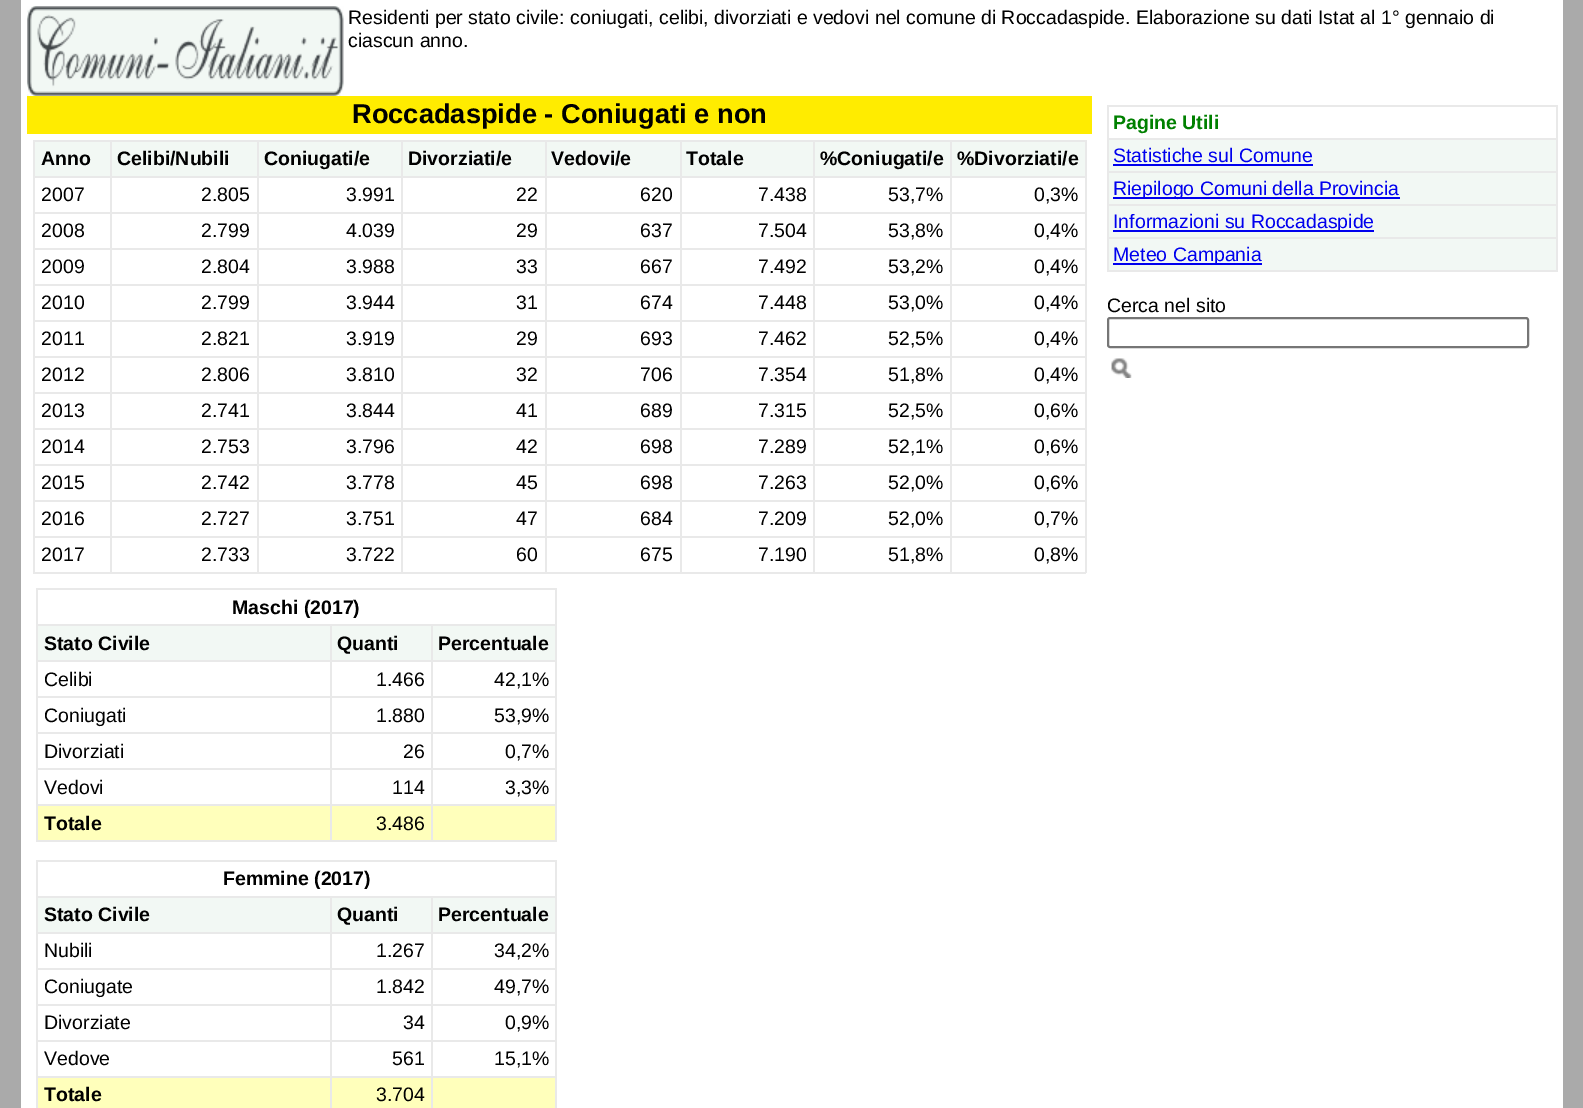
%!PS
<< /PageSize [1583 1108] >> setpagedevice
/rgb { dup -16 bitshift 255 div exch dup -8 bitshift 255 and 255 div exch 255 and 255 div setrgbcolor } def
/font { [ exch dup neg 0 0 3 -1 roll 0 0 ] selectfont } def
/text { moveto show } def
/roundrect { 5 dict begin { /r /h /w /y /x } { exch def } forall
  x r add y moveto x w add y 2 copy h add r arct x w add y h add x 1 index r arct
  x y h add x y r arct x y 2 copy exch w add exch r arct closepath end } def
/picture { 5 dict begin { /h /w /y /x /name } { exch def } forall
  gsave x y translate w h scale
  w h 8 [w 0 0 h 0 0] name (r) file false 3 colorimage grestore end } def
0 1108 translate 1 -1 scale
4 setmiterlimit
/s1 { /LiberationSans-Regular 19.5 font 16#000000 rgb } def
/s2 { /LiberationSans-Bold 27.25 font 16#000000 rgb } def
/s3 { /LiberationSans-Bold 19.5 font 16#000000 rgb } def
/s4 { /LiberationSans-Bold 19.5 font 16#008000 rgb } def
/s5 { /LiberationSans-Regular 19.5 font 16#0000EE rgb } def
16#AAAAAA rgb
0 0 1583 1108 rectfill
16#FFFFFF rgb
21 0 1542 1108 rectfill
(pic1.raw) 27 6 317 90 picture
s1
(Residenti per stato civile: coniugati, celibi, divorziati e vedovi nel comune di Roccadaspide. Elaborazione su dati Istat al 1° gennaio di) 348 24 text
(ciascun anno.) 348 47 text
16#FFEC00 rgb
27 96 1065 38 rectfill
s2
(Roccadaspide - Coniugati e non) 352 123 text
16#E9E9E9 rgb
33 140 1053 2 rectfill
1085 140 2 433 rectfill
33 572 1053 2 rectfill
33 140 2 433 rectfill
16#F2F8F4 rgb
35 142 75 34 rectfill
s3
(Anno) 41 165 text
16#F2F8F4 rgb
112 142 145 34 rectfill
16#E9E9E9 rgb
950 176 136 2 rectfill
950 212 136 2 rectfill
950 248 136 2 rectfill
950 284 136 2 rectfill
950 320 136 2 rectfill
950 356 136 2 rectfill
950 392 136 2 rectfill
950 428 136 2 rectfill
950 464 136 2 rectfill
950 500 136 2 rectfill
950 536 136 2 rectfill
950 536 2 37 rectfill
813 536 138 2 rectfill
950 500 2 37 rectfill
813 500 138 2 rectfill
950 464 2 37 rectfill
813 464 138 2 rectfill
950 428 2 37 rectfill
813 428 138 2 rectfill
950 392 2 37 rectfill
813 392 138 2 rectfill
950 356 2 37 rectfill
813 356 138 2 rectfill
950 320 2 37 rectfill
813 320 138 2 rectfill
950 284 2 37 rectfill
813 284 138 2 rectfill
950 248 2 37 rectfill
813 248 138 2 rectfill
950 212 2 37 rectfill
813 212 138 2 rectfill
950 176 2 37 rectfill
813 176 138 2 rectfill
813 536 2 37 rectfill
680 536 135 2 rectfill
813 500 2 37 rectfill
680 500 135 2 rectfill
813 464 2 37 rectfill
680 464 135 2 rectfill
813 428 2 37 rectfill
680 428 135 2 rectfill
813 392 2 37 rectfill
680 392 135 2 rectfill
813 356 2 37 rectfill
680 356 135 2 rectfill
813 320 2 37 rectfill
680 320 135 2 rectfill
813 284 2 37 rectfill
680 284 135 2 rectfill
813 248 2 37 rectfill
680 248 135 2 rectfill
813 212 2 37 rectfill
680 212 135 2 rectfill
813 176 2 37 rectfill
680 176 135 2 rectfill
680 536 2 37 rectfill
545 536 136 2 rectfill
680 500 2 37 rectfill
545 500 136 2 rectfill
680 464 2 37 rectfill
545 464 136 2 rectfill
680 428 2 37 rectfill
545 428 136 2 rectfill
680 392 2 37 rectfill
545 392 136 2 rectfill
680 356 2 37 rectfill
545 356 136 2 rectfill
680 320 2 37 rectfill
545 320 136 2 rectfill
680 284 2 37 rectfill
545 284 136 2 rectfill
680 248 2 37 rectfill
545 248 136 2 rectfill
680 212 2 37 rectfill
545 212 136 2 rectfill
680 176 2 37 rectfill
545 176 136 2 rectfill
545 536 2 37 rectfill
401 536 145 2 rectfill
545 500 2 37 rectfill
401 500 145 2 rectfill
545 464 2 37 rectfill
401 464 145 2 rectfill
545 428 2 37 rectfill
401 428 145 2 rectfill
545 392 2 37 rectfill
401 392 145 2 rectfill
545 356 2 37 rectfill
401 356 145 2 rectfill
545 320 2 37 rectfill
401 320 145 2 rectfill
545 284 2 37 rectfill
401 284 145 2 rectfill
545 248 2 37 rectfill
401 248 145 2 rectfill
545 212 2 37 rectfill
401 212 145 2 rectfill
545 176 2 37 rectfill
401 176 145 2 rectfill
401 536 2 37 rectfill
257 536 145 2 rectfill
401 500 2 37 rectfill
257 500 145 2 rectfill
401 464 2 37 rectfill
257 464 145 2 rectfill
401 428 2 37 rectfill
257 428 145 2 rectfill
401 392 2 37 rectfill
257 392 145 2 rectfill
401 356 2 37 rectfill
257 356 145 2 rectfill
401 320 2 37 rectfill
257 320 145 2 rectfill
401 284 2 37 rectfill
257 284 145 2 rectfill
401 248 2 37 rectfill
257 248 145 2 rectfill
401 212 2 37 rectfill
257 212 145 2 rectfill
401 176 2 37 rectfill
257 176 145 2 rectfill
257 536 2 37 rectfill
110 536 148 2 rectfill
257 500 2 37 rectfill
110 500 148 2 rectfill
257 464 2 37 rectfill
110 464 148 2 rectfill
257 428 2 37 rectfill
110 428 148 2 rectfill
257 392 2 37 rectfill
110 392 148 2 rectfill
257 356 2 37 rectfill
110 356 148 2 rectfill
257 320 2 37 rectfill
110 320 148 2 rectfill
257 284 2 37 rectfill
110 284 148 2 rectfill
257 248 2 37 rectfill
110 248 148 2 rectfill
257 212 2 37 rectfill
110 212 148 2 rectfill
257 176 2 37 rectfill
110 176 148 2 rectfill
110 536 2 37 rectfill
33 536 78 2 rectfill
110 500 2 37 rectfill
33 500 78 2 rectfill
110 464 2 37 rectfill
33 464 78 2 rectfill
110 428 2 37 rectfill
33 428 78 2 rectfill
110 392 2 37 rectfill
33 392 78 2 rectfill
110 356 2 37 rectfill
33 356 78 2 rectfill
110 320 2 37 rectfill
33 320 78 2 rectfill
110 284 2 37 rectfill
33 284 78 2 rectfill
110 248 2 37 rectfill
33 248 78 2 rectfill
110 212 2 37 rectfill
33 212 78 2 rectfill
110 176 2 37 rectfill
33 176 78 2 rectfill
110 140 2 37 rectfill
s3
(Celibi/Nubili) 117 165 text
16#F2F8F4 rgb
259 142 142 34 rectfill
16#E9E9E9 rgb
257 140 2 37 rectfill
s3
(Coniugati/e) 264 165 text
16#F2F8F4 rgb
403 142 142 34 rectfill
16#E9E9E9 rgb
401 140 2 37 rectfill
s3
(Divorziati/e) 408 165 text
16#F2F8F4 rgb
547 142 133 34 rectfill
16#E9E9E9 rgb
545 140 2 37 rectfill
s3
(Vedovi/e) 551 165 text
16#F2F8F4 rgb
682 142 131 34 rectfill
16#E9E9E9 rgb
680 140 2 37 rectfill
s3
(Totale) 686 165 text
16#F2F8F4 rgb
815 142 135 34 rectfill
16#E9E9E9 rgb
813 140 2 37 rectfill
s3
(%Coniugati/e) 820 165 text
16#F2F8F4 rgb
952 142 133 34 rectfill
16#E9E9E9 rgb
950 140 2 37 rectfill
s3
(%Divorziati/e) 957 165 text
s1
(2007) 41 201 text
(2.805) 201 201 text
(3.991) 346 201 text
(22) 516 201 text
(620) 640 201 text
(7.438) 758 201 text
(53,7%) 888 201 text
(0,3%) 1034 201 text
(2008) 41 237 text
(2.799) 201 237 text
(4.039) 346 237 text
(29) 516 237 text
(637) 640 237 text
(7.504) 758 237 text
(53,8%) 888 237 text
(0,4%) 1034 237 text
(2009) 41 273 text
(2.804) 201 273 text
(3.988) 346 273 text
(33) 516 273 text
(667) 640 273 text
(7.492) 758 273 text
(53,2%) 888 273 text
(0,4%) 1034 273 text
(2010) 41 309 text
(2.799) 201 309 text
(3.944) 346 309 text
(31) 516 309 text
(674) 640 309 text
(7.448) 758 309 text
(53,0%) 888 309 text
(0,4%) 1034 309 text
(2011) 41 345 text
(2.821) 201 345 text
(3.919) 346 345 text
(29) 516 345 text
(693) 640 345 text
(7.462) 758 345 text
(52,5%) 888 345 text
(0,4%) 1034 345 text
(2012) 41 381 text
(2.806) 201 381 text
(3.810) 346 381 text
(32) 516 381 text
(706) 640 381 text
(7.354) 758 381 text
(51,8%) 888 381 text
(0,4%) 1034 381 text
(2013) 41 417 text
(2.741) 201 417 text
(3.844) 346 417 text
(41) 516 417 text
(689) 640 417 text
(7.315) 758 417 text
(52,5%) 888 417 text
(0,6%) 1034 417 text
(2014) 41 453 text
(2.753) 201 453 text
(3.796) 346 453 text
(42) 516 453 text
(698) 640 453 text
(7.289) 758 453 text
(52,1%) 888 453 text
(0,6%) 1034 453 text
(2015) 41 489 text
(2.742) 201 489 text
(3.778) 346 489 text
(45) 516 489 text
(698) 640 489 text
(7.263) 758 489 text
(52,0%) 888 489 text
(0,6%) 1034 489 text
(2016) 41 525 text
(2.727) 201 525 text
(3.751) 346 525 text
(47) 516 525 text
(684) 640 525 text
(7.209) 758 525 text
(52,0%) 888 525 text
(0,7%) 1034 525 text
(2017) 41 561 text
(2.733) 201 561 text
(3.722) 346 561 text
(60) 516 561 text
(675) 640 561 text
(7.190) 758 561 text
(51,8%) 888 561 text
(0,8%) 1034 561 text
16#E9E9E9 rgb
36 588 521 2 rectfill
555 588 2 254 rectfill
36 840 521 2 rectfill
36 588 2 254 rectfill
s3
(Maschi \(2017\)) 232 614 text
16#F2F8F4 rgb
38 626 292 34 rectfill
16#E9E9E9 rgb
431 624 126 2 rectfill
431 660 126 2 rectfill
431 696 126 2 rectfill
431 732 126 2 rectfill
431 768 126 2 rectfill
431 804 126 2 rectfill
16#FFFFBB rgb
38 806 517 34 rectfill
16#E9E9E9 rgb
431 804 2 38 rectfill
330 804 102 2 rectfill
431 768 2 38 rectfill
330 768 102 2 rectfill
431 732 2 38 rectfill
330 732 102 2 rectfill
431 696 2 38 rectfill
330 696 102 2 rectfill
431 660 2 38 rectfill
330 660 102 2 rectfill
431 624 2 38 rectfill
330 624 102 2 rectfill
330 804 2 38 rectfill
36 804 296 2 rectfill
330 768 2 38 rectfill
36 768 296 2 rectfill
330 732 2 38 rectfill
36 732 296 2 rectfill
330 696 2 38 rectfill
36 696 296 2 rectfill
330 660 2 38 rectfill
36 660 296 2 rectfill
330 624 2 38 rectfill
36 624 296 2 rectfill
s3
(Stato Civile) 44 650 text
16#F2F8F4 rgb
332 626 99 34 rectfill
s3
(Quanti) 337 650 text
16#F2F8F4 rgb
433 626 122 34 rectfill
s3
(Percentuale) 438 650 text
s1
(Celibi) 44 686 text
(1.466) 376 686 text
(42,1%) 494 686 text
(Coniugati) 44 722 text
(1.880) 376 722 text
(53,9%) 494 722 text
(Divorziati) 44 758 text
(26) 403 758 text
(0,7%) 505 758 text
(Vedovi) 44 794 text
(114) 392 794 text
(3,3%) 505 794 text
s3
(Totale) 44 830 text
s1
(3.486) 376 830 text
16#E9E9E9 rgb
36 860 521 2 rectfill
555 860 2 248 rectfill
36 860 2 248 rectfill
s3
(Femmine \(2017\)) 223 885 text
16#F2F8F4 rgb
38 898 292 34 rectfill
16#E9E9E9 rgb
431 896 126 2 rectfill
431 932 126 2 rectfill
431 968 126 2 rectfill
431 1004 126 2 rectfill
431 1040 126 2 rectfill
431 1076 126 2 rectfill
16#FFFFBB rgb
38 1078 517 30 rectfill
16#E9E9E9 rgb
431 1076 2 32 rectfill
330 1076 102 2 rectfill
431 1040 2 37 rectfill
330 1040 102 2 rectfill
431 1004 2 37 rectfill
330 1004 102 2 rectfill
431 968 2 37 rectfill
330 968 102 2 rectfill
431 932 2 37 rectfill
330 932 102 2 rectfill
431 896 2 37 rectfill
330 896 102 2 rectfill
330 1076 2 32 rectfill
36 1076 296 2 rectfill
330 1040 2 37 rectfill
36 1040 296 2 rectfill
330 1004 2 37 rectfill
36 1004 296 2 rectfill
330 968 2 37 rectfill
36 968 296 2 rectfill
330 932 2 37 rectfill
36 932 296 2 rectfill
330 896 2 37 rectfill
36 896 296 2 rectfill
s3
(Stato Civile) 44 921 text
16#F2F8F4 rgb
332 898 99 34 rectfill
s3
(Quanti) 337 921 text
16#F2F8F4 rgb
433 898 122 34 rectfill
s3
(Percentuale) 438 921 text
s1
(Nubili) 44 957 text
(1.267) 376 957 text
(34,2%) 494 957 text
(Coniugate) 44 993 text
(1.842) 376 993 text
(49,7%) 494 993 text
(Divorziate) 44 1029 text
(34) 403 1029 text
(0,9%) 505 1029 text
(Vedove) 44 1065 text
(561) 392 1065 text
(15,1%) 494 1065 text
s3
(Totale) 44 1101 text
s1
(3.704) 376 1101 text
16#F2F8F4 rgb
1109 140 447 130 rectfill
16#E9E9E9 rgb
1107 105 450 2 rectfill
1556 105 2 167 rectfill
1107 270 450 2 rectfill
1107 105 2 167 rectfill
s4
(Pagine Utili) 1113 129 text
16#E9E9E9 rgb
1107 138 450 2 rectfill
s5
(Statistiche sul Comune) 1113 162 text
1113 164 200 2 rectfill
16#E9E9E9 rgb
1107 171 450 2 rectfill
16#0000EE rgb
1113 197 287 2 rectfill
(Riepilogo Comuni della Provincia) 1113 195 text
16#E9E9E9 rgb
1107 204 450 2 rectfill
16#0000EE rgb
1113 230 261 2 rectfill
(Informazioni su Roccadaspide) 1113 228 text
16#E9E9E9 rgb
1107 237 450 2 rectfill
16#0000EE rgb
1113 263 149 2 rectfill
(Meteo Campania) 1113 261 text
s1
(Cerca nel sito) 1107 312 text
16#767676 rgb
2 setlinewidth
1108 318 420 29 2 roundrect stroke
(pic2.raw) 1111 358 21 20 picture
showpage
